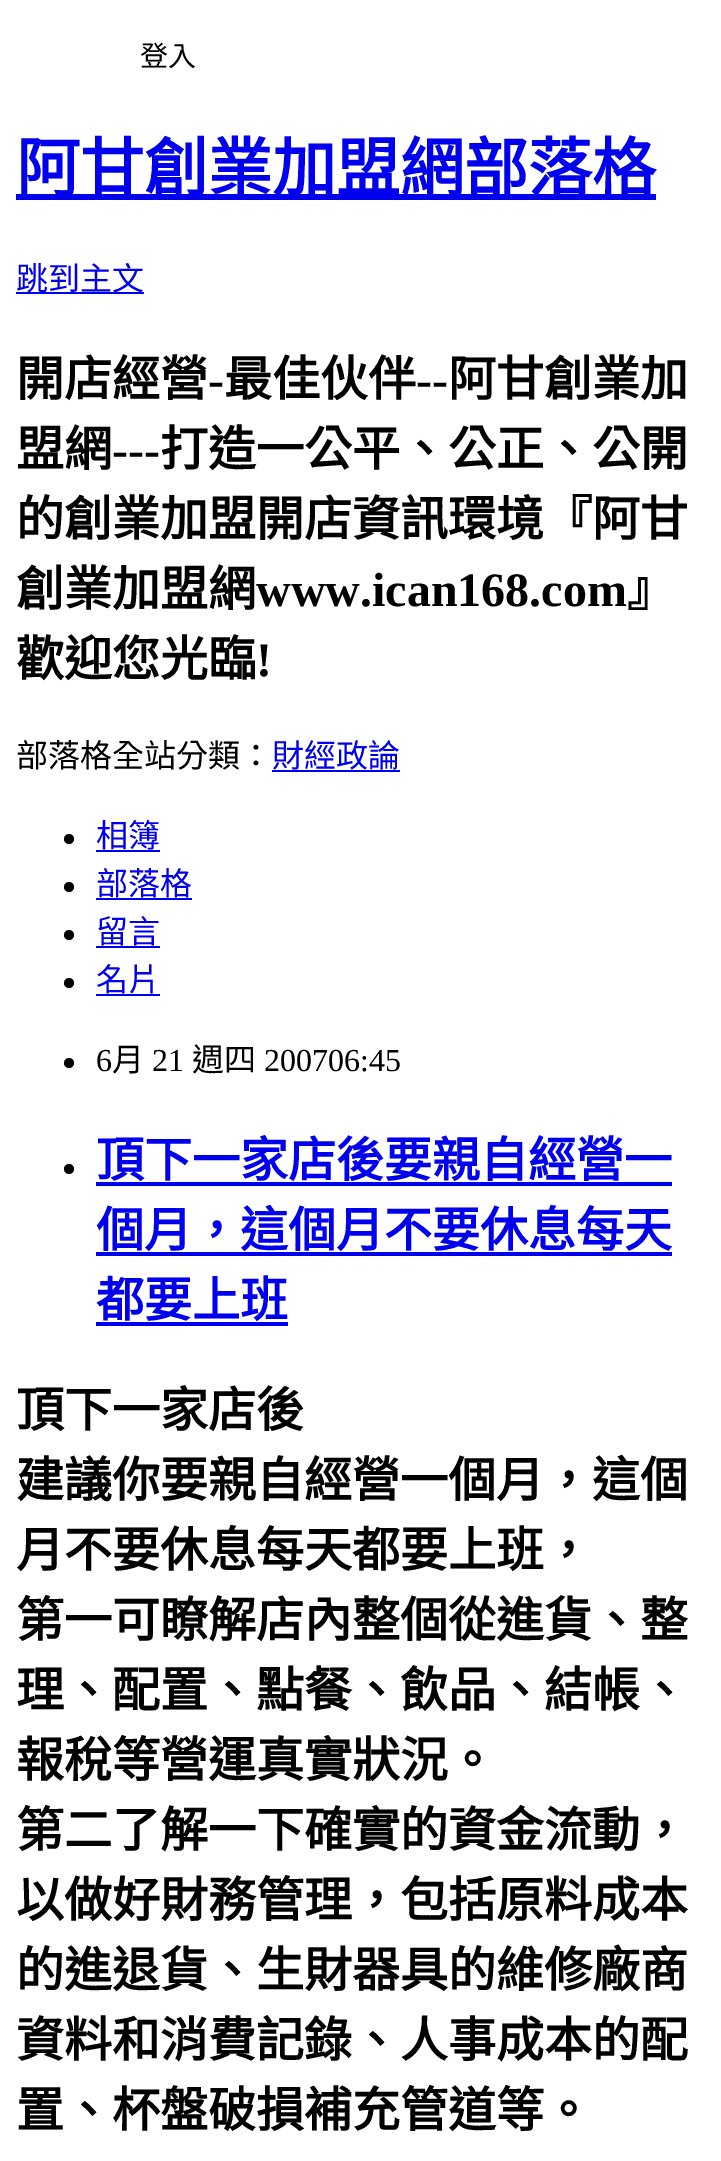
%!PS
<< /PageSize [721 2161] >> setpagedevice
/rgb { dup -16 bitshift 255 div exch dup -8 bitshift 255 and 255 div exch 255 and 255 div setrgbcolor } def
/font { [ exch dup neg 0 0 3 -1 roll 0 0 ] selectfont } def
/text { moveto show } def
/circle { newpath 0 360 arc closepath } def
0 2161 translate 1 -1 scale
4 setmiterlimit
/s1 { /NotoSansCJKTC-Regular 28 font 16#000000 rgb } def
/s2 { /NotoSansCJKTC-Bold 64 font 16#0000EE rgb } def
/s3 { /NotoSansCJKTC-Regular 32 font 16#0000EE rgb } def
/s4 { /NotoSansCJKTC-Bold 48 font 16#000000 rgb } def
/s5 { /LiberationSerif-Bold 48 font 16#000000 rgb } def
/s6 { /NotoSansCJKTC-Regular 32 font 16#000000 rgb } def
/s7 { /LiberationSerif-Regular 32 font 16#000000 rgb } def
/s8 { /NotoSansCJKTC-Bold 48 font 16#0000EE rgb } def
16#FFFFFF rgb
0 0 721 2161 rectfill
s1
(登入) 140 66 text
16#0000EE rgb
16 194 640 6 rectfill
s2
(阿甘創業加盟網部落格) 16 191 text
16 292 128 2 rectfill
s3
(跳到主文) 16 290 text
s4
(開店經營) 16 396 text
s5
(-) 208 396 text
s4
(最佳伙伴) 224 396 text
s5
(--) 416 396 text
s4
(阿甘創業加) 448 396 text
(盟網) 16 466 text
s5
(---) 112 466 text
s4
(打造一公平、公正、公開) 160 466 text
(的創業加盟開店資訊環境『阿甘) 16 536 text
(創業加盟網) 16 606 text
s5
(www.ican168.com) 256 606 text
s4
(』) 627 606 text
(歡迎您光臨) 16 676 text
s5
(!) 256 676 text
s6
(部落格全站分類：) 16 767 text
s3
(財經政論) 272 767 text
272 770 128 2 rectfill
16#000000 rgb
69 839 5 circle fill
s3
(相簿) 96 847 text
96 850 64 2 rectfill
16#000000 rgb
69 887 5 circle fill
s3
(部落格) 96 895 text
96 898 96 2 rectfill
16#000000 rgb
69 935 5 circle fill
s3
(留言) 96 943 text
96 946 64 2 rectfill
16#000000 rgb
69 983 5 circle fill
s3
(名片) 96 991 text
96 994 64 2 rectfill
16#000000 rgb
69 1063 5 circle fill
s7
(6) 96 1071 text
s6
(月) 112 1071 text
s7
(21) 152 1071 text
s6
(週四) 192 1071 text
s7
(200706:45) 264 1071 text
69 1169 5 circle fill
s8
(頂下一家店後要親自經營一) 96 1177 text
96 1182 576 4 rectfill
(個月，這個月不要休息每天) 96 1247 text
96 1252 576 4 rectfill
(都要上班) 96 1317 text
96 1322 192 4 rectfill
s4
(頂下一家店後) 16 1427 text
(建議你要親自經營一個月，這個) 16 1497 text
(月不要休息每天都要上班，) 16 1567 text
(第一可瞭解店內整個從進貨、整) 16 1637 text
(理、配置、點餐、飲品、結帳、) 16 1707 text
(報稅等營運真實狀況。) 16 1777 text
(第二了解一下確實的資金流動，) 16 1847 text
(以做好財務管理，包括原料成本) 16 1917 text
(的進退貨、生財器具的維修廠商) 16 1987 text
(資料和消費記錄、人事成本的配) 16 2057 text
(置、杯盤破損補充管道等。) 16 2127 text
showpage
